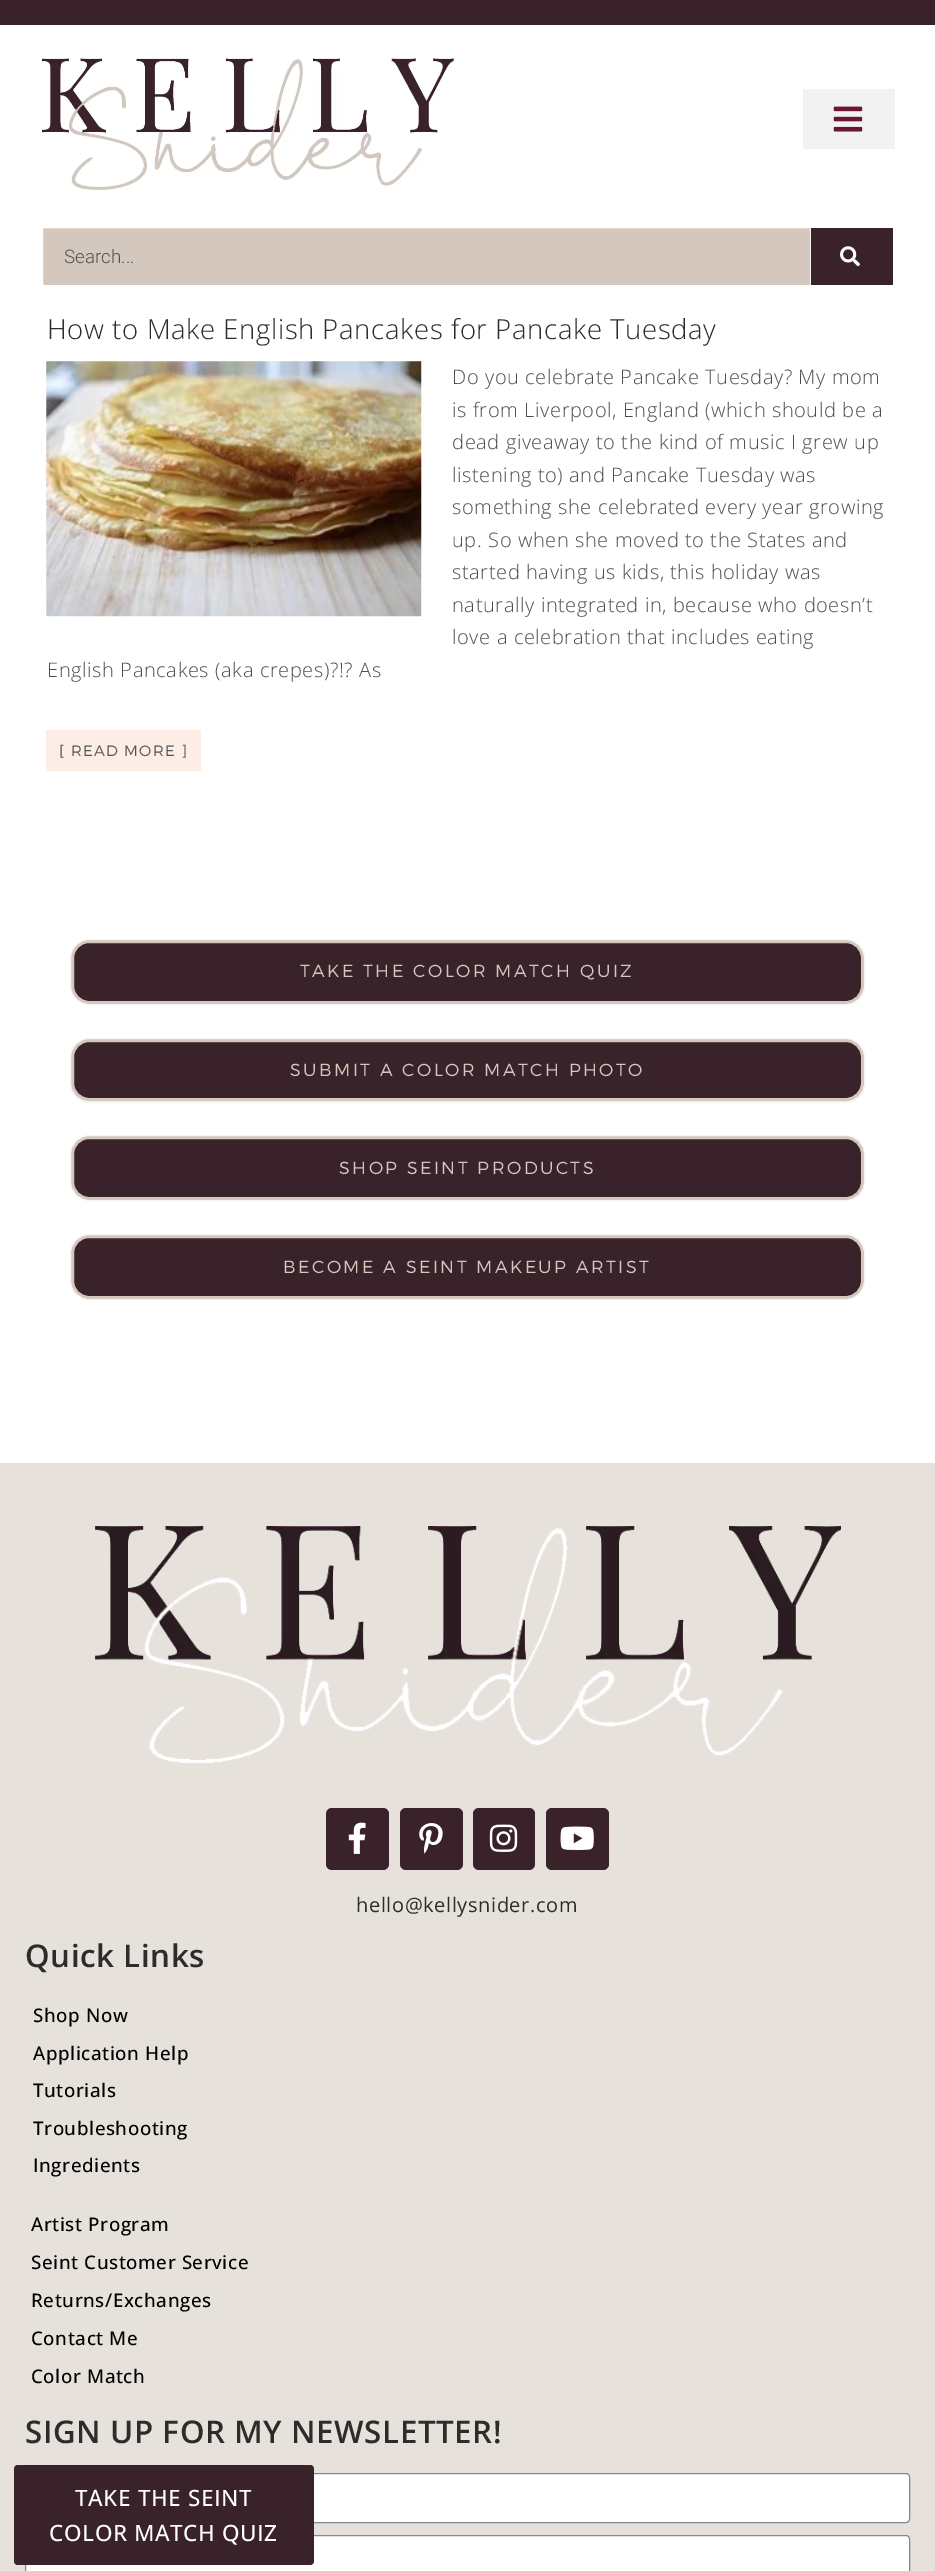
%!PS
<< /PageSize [935 2571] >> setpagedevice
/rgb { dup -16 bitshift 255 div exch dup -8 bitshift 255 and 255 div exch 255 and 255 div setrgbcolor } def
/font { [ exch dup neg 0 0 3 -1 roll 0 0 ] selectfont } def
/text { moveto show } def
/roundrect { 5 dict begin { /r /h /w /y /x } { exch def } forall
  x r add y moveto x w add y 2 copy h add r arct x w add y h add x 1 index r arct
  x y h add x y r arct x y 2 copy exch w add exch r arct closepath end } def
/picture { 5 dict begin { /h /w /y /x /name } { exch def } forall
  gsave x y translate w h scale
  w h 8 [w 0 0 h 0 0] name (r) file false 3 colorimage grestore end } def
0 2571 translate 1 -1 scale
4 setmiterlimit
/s1 { /Roboto-Light 18.75 font 16#55504C rgb } def
16#FFFFFF rgb
0 0 935 2571 rectfill
16#39222A rgb
0 0 935 25 rectfill
(pic1.raw) 41 58 414 133 picture
16#F2F2F2 rgb
803 89 92 60 rectfill
(pic2.raw) 833 106 30 26 picture
16#D4C8BE rgb
41.5 226.5 852 60 2.5 roundrect gsave fill grestore
16#FFFFFF rgb
3 setlinewidth
stroke
s1
(Search...) 64 263 text
16#39222A rgb
811 228 moveto 892 228 lineto 892.5 228 893 228.5 893 229 curveto 893 284 lineto 893 284.5 892.5 285 892 285 curveto 811 285 lineto closepath fill
16#F5F5F5 rgb
810 228 1 57 rectfill
(pic3.raw) 840 246 20 21 picture
/OpenSans-Light 27.5 font
16#2C2C2C rgb
47 339 moveto 0.6 0 (How to Make English Pancakes for Pancake Tuesday) ashow
(pic4.raw) 46 361 376 256 picture
/OpenSans-Light 20 font
16#4E4E4E rgb
452 384 moveto 0.6 0 (Do you celebrate Pancake Tuesday? My mom) ashow
452 417 moveto 0.6 0 (is from Liverpool, England \(which should be a) ashow
452 449 moveto 0.6 0 (dead giveaway to the kind of music I grew up) ashow
452 482 moveto 0.6 0 (listening to\) and Pancake Tuesday was) ashow
452 514 moveto 0.6 0 (something she celebrated every year growing) ashow
452 547 moveto 0.6 0 (up. So when she moved to the States and) ashow
452 579 moveto 0.6 0 (started having us kids, this holiday was) ashow
452 612 moveto 0.6 0 (naturally integrated in, because who doesn’t) ashow
452 644 moveto 0.6 0 (love a celebration that includes eating) ashow
47 677 moveto 0.6 0 (English Pancakes \(aka crepes\)?!? As) ashow
16#FCEEE5 rgb
46 730 155 41 rectfill
/Montserrat-Light 15 font
16#555555 rgb
59 756 moveto 1.25 0 ([ READ MORE ]) ashow
16#39222A rgb
72.5 941.5 790 61 16.5 roundrect gsave fill grestore
16#D4C8BE rgb
stroke
16#F5F5F5 rgb
1 setlinewidth
70.5 939.5 794 65 18.5 roundrect stroke
/Montserrat-Light 17.5 font
16#D4C8BE rgb
300 977 moveto 2.5 0 (TAKE THE COLOR MATCH QUIZ) ashow
16#39222A rgb
72.5 1040.5 790 59 16.5 roundrect gsave fill grestore
16#D4C8BE rgb
3 setlinewidth
stroke
16#F5F5F5 rgb
1 setlinewidth
70.5 1038.5 794 64 18.5 roundrect stroke
16#D4C8BE rgb
290 1076 moveto 2.5 0 (SUBMIT A COLOR MATCH PHOTO) ashow
16#39222A rgb
72.5 1137.5 790 61 16.5 roundrect gsave fill grestore
16#D4C8BE rgb
3 setlinewidth
stroke
16#F5F5F5 rgb
1 setlinewidth
70.5 1135.5 794 65 18.5 roundrect stroke
16#D4C8BE rgb
339 1174 moveto 2.5 0 (SHOP SEINT PRODUCTS) ashow
16#39222A rgb
72.5 1236.5 790 61 16.5 roundrect gsave fill grestore
16#D4C8BE rgb
3 setlinewidth
stroke
16#F5F5F5 rgb
1 setlinewidth
70.5 1234.5 794 65 18.5 roundrect stroke
16#D4C8BE rgb
283 1273 moveto 2.5 0 (BECOME A SEINT MAKEUP ARTIST) ashow
16#E7E1DB rgb
0 1463 935 1108 rectfill
(pic5.raw) 95 1526 746 238 picture
16#39222A rgb
326 1808 63 62 6 roundrect fill
(pic6.raw) 348 1822 18 32 picture
400 1808 63 62 6 roundrect fill
(pic7.raw) 419 1823 24 31 picture
473 1808 62 62 6 roundrect fill
(pic8.raw) 489 1824 29 28 picture
546 1808 63 62 6 roundrect fill
(pic9.raw) 560 1826 34 24 picture
/OpenSans-Regular 20 font
16#2C2C2C rgb
356 1912 moveto 0.6 0 (hello@kellysnider.com) ashow
/OpenSans-SemiBold 31.25 font
25 1967 moveto 0.6 0 (Quick Links) ashow
/OpenSans-Medium 18.75 font
16#000000 rgb
33 2022 moveto 0.6 0 (Shop Now) ashow
33 2060 moveto 0.6 0 (Application Help) ashow
33 2097 moveto 0.6 0 (Tutorials) ashow
33 2135 moveto 0.6 0 (Troubleshooting) ashow
33 2172 moveto 0.6 0 (Ingredients) ashow
31 2231 moveto 0.6 0 (Artist Program) ashow
31 2269 moveto 0.6 0 (Seint Customer Service) ashow
31 2307 moveto 0.6 0 (Returns/Exchanges) ashow
31 2345 moveto 0.6 0 (Contact Me) ashow
31 2383 moveto 0.6 0 (Color Match) ashow
/OpenSans-SemiBold 31.25 font
16#2C2C2C rgb
25 2443 moveto 0.6 0 (SIGN UP FOR MY NEWSLETTER!) ashow
16#FFFFFF rgb
25.5 2473.5 884 49 3.5 roundrect gsave fill grestore
16#818A91 rgb
stroke
16#FFFFFF rgb
25.5 2535.5 884 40 3.5 roundrect gsave fill grestore
16#818A91 rgb
stroke
16#39222A rgb
14 2465 300 100 4 roundrect fill
/OpenSans-Medium 22.5 font
16#FFFFFF rgb
75 2506 moveto 0.6 0 (TAKE THE SEINT) ashow
49 2541 moveto 0.6 0 (COLOR MATCH QUIZ) ashow
showpage
